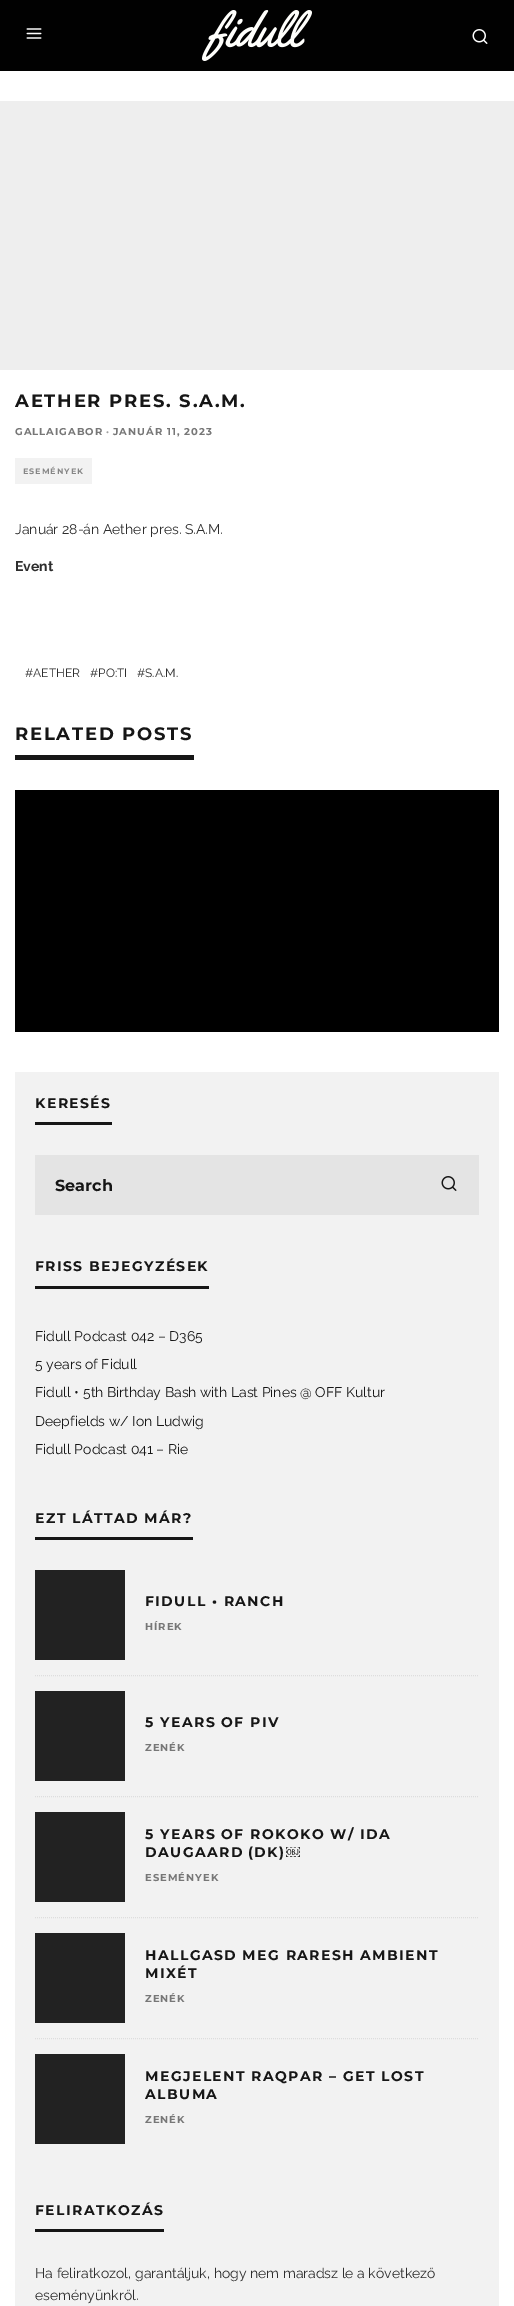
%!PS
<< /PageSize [514 2306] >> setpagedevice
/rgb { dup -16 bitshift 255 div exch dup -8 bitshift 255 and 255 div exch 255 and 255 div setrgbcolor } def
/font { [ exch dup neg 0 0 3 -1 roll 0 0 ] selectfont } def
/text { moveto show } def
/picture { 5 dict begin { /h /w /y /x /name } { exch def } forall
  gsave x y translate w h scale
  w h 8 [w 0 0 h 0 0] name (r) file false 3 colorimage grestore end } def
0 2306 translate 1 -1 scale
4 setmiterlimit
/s1 { /Raleway-Regular 14 font 16#2E2E2E rgb } def
/s2 { /Raleway-Bold 14 font 16#2E2E2E rgb } def
/s3 { /Raleway-Regular 12 font 16#2E2E2E rgb } def
/s4 { /Montserrat-Bold 16 font 16#161616 rgb } def
/s5 { /Raleway-Regular 14 font 16#161616 rgb } def
16#FFFFFF rgb
0 0 514 2306 rectfill
16#010101 rgb
0 0 514 71 rectfill
(pic1.raw) 26 28 16 11 picture
(pic2.raw) 202 10 110 51 picture
(pic3.raw) 472 29 16 15 picture
16#EEEEEE rgb
0 101 514 269 rectfill
/Montserrat-Bold 18 font
16#161616 rgb
15 407 moveto 1.75 0 (AETHER PRES. S.A.M.) ashow
/Montserrat-Bold 10 font
16#777777 rgb
15 435 moveto 1 0 (GALLAIGABOR) ashow
16#A0A0A0 rgb
106 435 moveto 1 0 (·) ashow
16#777777 rgb
113 435 moveto 1 0 (JANUÁR 11, 2023) ashow
16#F2F2F2 rgb
15 458 77 26 rectfill
/Montserrat-Bold 8 font
16#868686 rgb
23 474 moveto 1 0 (ESEMÉNYEK) ashow
s1
(Január 28-án Aether pres. S.A.M.) 15 534 text
s2
(Event) 15 571 text
s3
(#AETHER) 25 677 text
(#PO:TI) 90 677 text
(#S.A.M.) 137 677 text
16#161616 rgb
15 755 179 5 rectfill
/Montserrat-Bold 18 font
15 740 moveto 1.75 0 (RELATED POSTS) ashow
16#000000 rgb
15 790 484 242 rectfill
16#F2F2F2 rgb
15 1072 484 1234 rectfill
16#161616 rgb
35 1122 77 3 rectfill
/Montserrat-Bold 14 font
35 1108 moveto 1.4 0 (KERESÉS) ashow
16#E4E4E4 rgb
35 1155 444 60 rectfill
s4
(Search) 55 1191 text
(pic4.raw) 441 1176 16 15 picture
35 1286 174 3 rectfill
/Montserrat-Bold 14 font
35 1271 moveto 1.4 0 (FRISS BEJEGYZÉSEK) ashow
s5
(Fidull Podcast 042 – D365) 35 1341 text
(5 years of Fidull) 35 1369 text
(Fidull • 5th Birthday Bash with Last Pines @ OFF Kultur) 35 1397 text
(Deepfields w/ Ion Ludwig) 35 1426 text
(Fidull Podcast 041 – Rie) 35 1454 text
35 1537 158 3 rectfill
/Montserrat-Bold 14 font
35 1523 moveto 1.4 0 (EZT LÁTTAD MÁR?) ashow
16#DDDDDD rgb
[1 1] 0 setdash
35 1675.5 moveto 479 1675.5 lineto stroke
16#222222 rgb
35 1570 90 90 rectfill
16#161616 rgb
145 1606 moveto 1.4 0 (FIDULL • RANCH) ashow
/Montserrat-Bold 10 font
16#777777 rgb
145 1630 moveto 1 0 (HÍREK) ashow
16#DDDDDD rgb
35 1796.5 moveto 479 1796.5 lineto stroke
16#222222 rgb
35 1691 90 90 rectfill
/Montserrat-Bold 14 font
16#161616 rgb
145 1727 moveto 1.4 0 (5 YEARS OF PIV) ashow
/Montserrat-Bold 10 font
16#777777 rgb
145 1751 moveto 1 0 (ZENÉK) ashow
16#DDDDDD rgb
35 1917.5 moveto 479 1917.5 lineto stroke
16#222222 rgb
35 1812 90 90 rectfill
/Montserrat-Bold 14 font
16#161616 rgb
145 1839 moveto 1.4 0 (5 YEARS OF ROKOKO W/ IDA) ashow
145 1857 moveto -1 0 32 1.4 0 (DAUGAARD \(DK\)) awidthshow
/LiberationSans-Bold 14 font
286 1857 moveto 1.4 0 (￼) ashow
/Montserrat-Bold 10 font
16#777777 rgb
145 1881 moveto 1 0 (ESEMÉNYEK) ashow
16#DDDDDD rgb
35 2038.5 moveto 479 2038.5 lineto stroke
16#222222 rgb
35 1933 90 90 rectfill
/Montserrat-Bold 14 font
16#161616 rgb
145 1960 moveto 1.4 0 (HALLGASD MEG RARESH AMBIENT) ashow
145 1978 moveto 1.4 0 (MIXÉT) ashow
/Montserrat-Bold 10 font
16#777777 rgb
145 2002 moveto 1 0 (ZENÉK) ashow
16#222222 rgb
35 2054 90 90 rectfill
/Montserrat-Bold 14 font
16#161616 rgb
145 2081 moveto 1.4 0 (MEGJELENT RAQPAR – GET LOST) ashow
145 2099 moveto 1.4 0 (ALBUMA) ashow
/Montserrat-Bold 10 font
16#777777 rgb
145 2123 moveto 1 0 (ZENÉK) ashow
16#161616 rgb
35 2229 129 3 rectfill
/Montserrat-Bold 14 font
35 2215 moveto 1.4 0 (FELIRATKOZÁS) ashow
s1
(Ha feliratkozol, garantáljuk, hogy nem maradsz le a következő) 35 2278 text
(eseményünkről.) 35 2300 text
showpage
